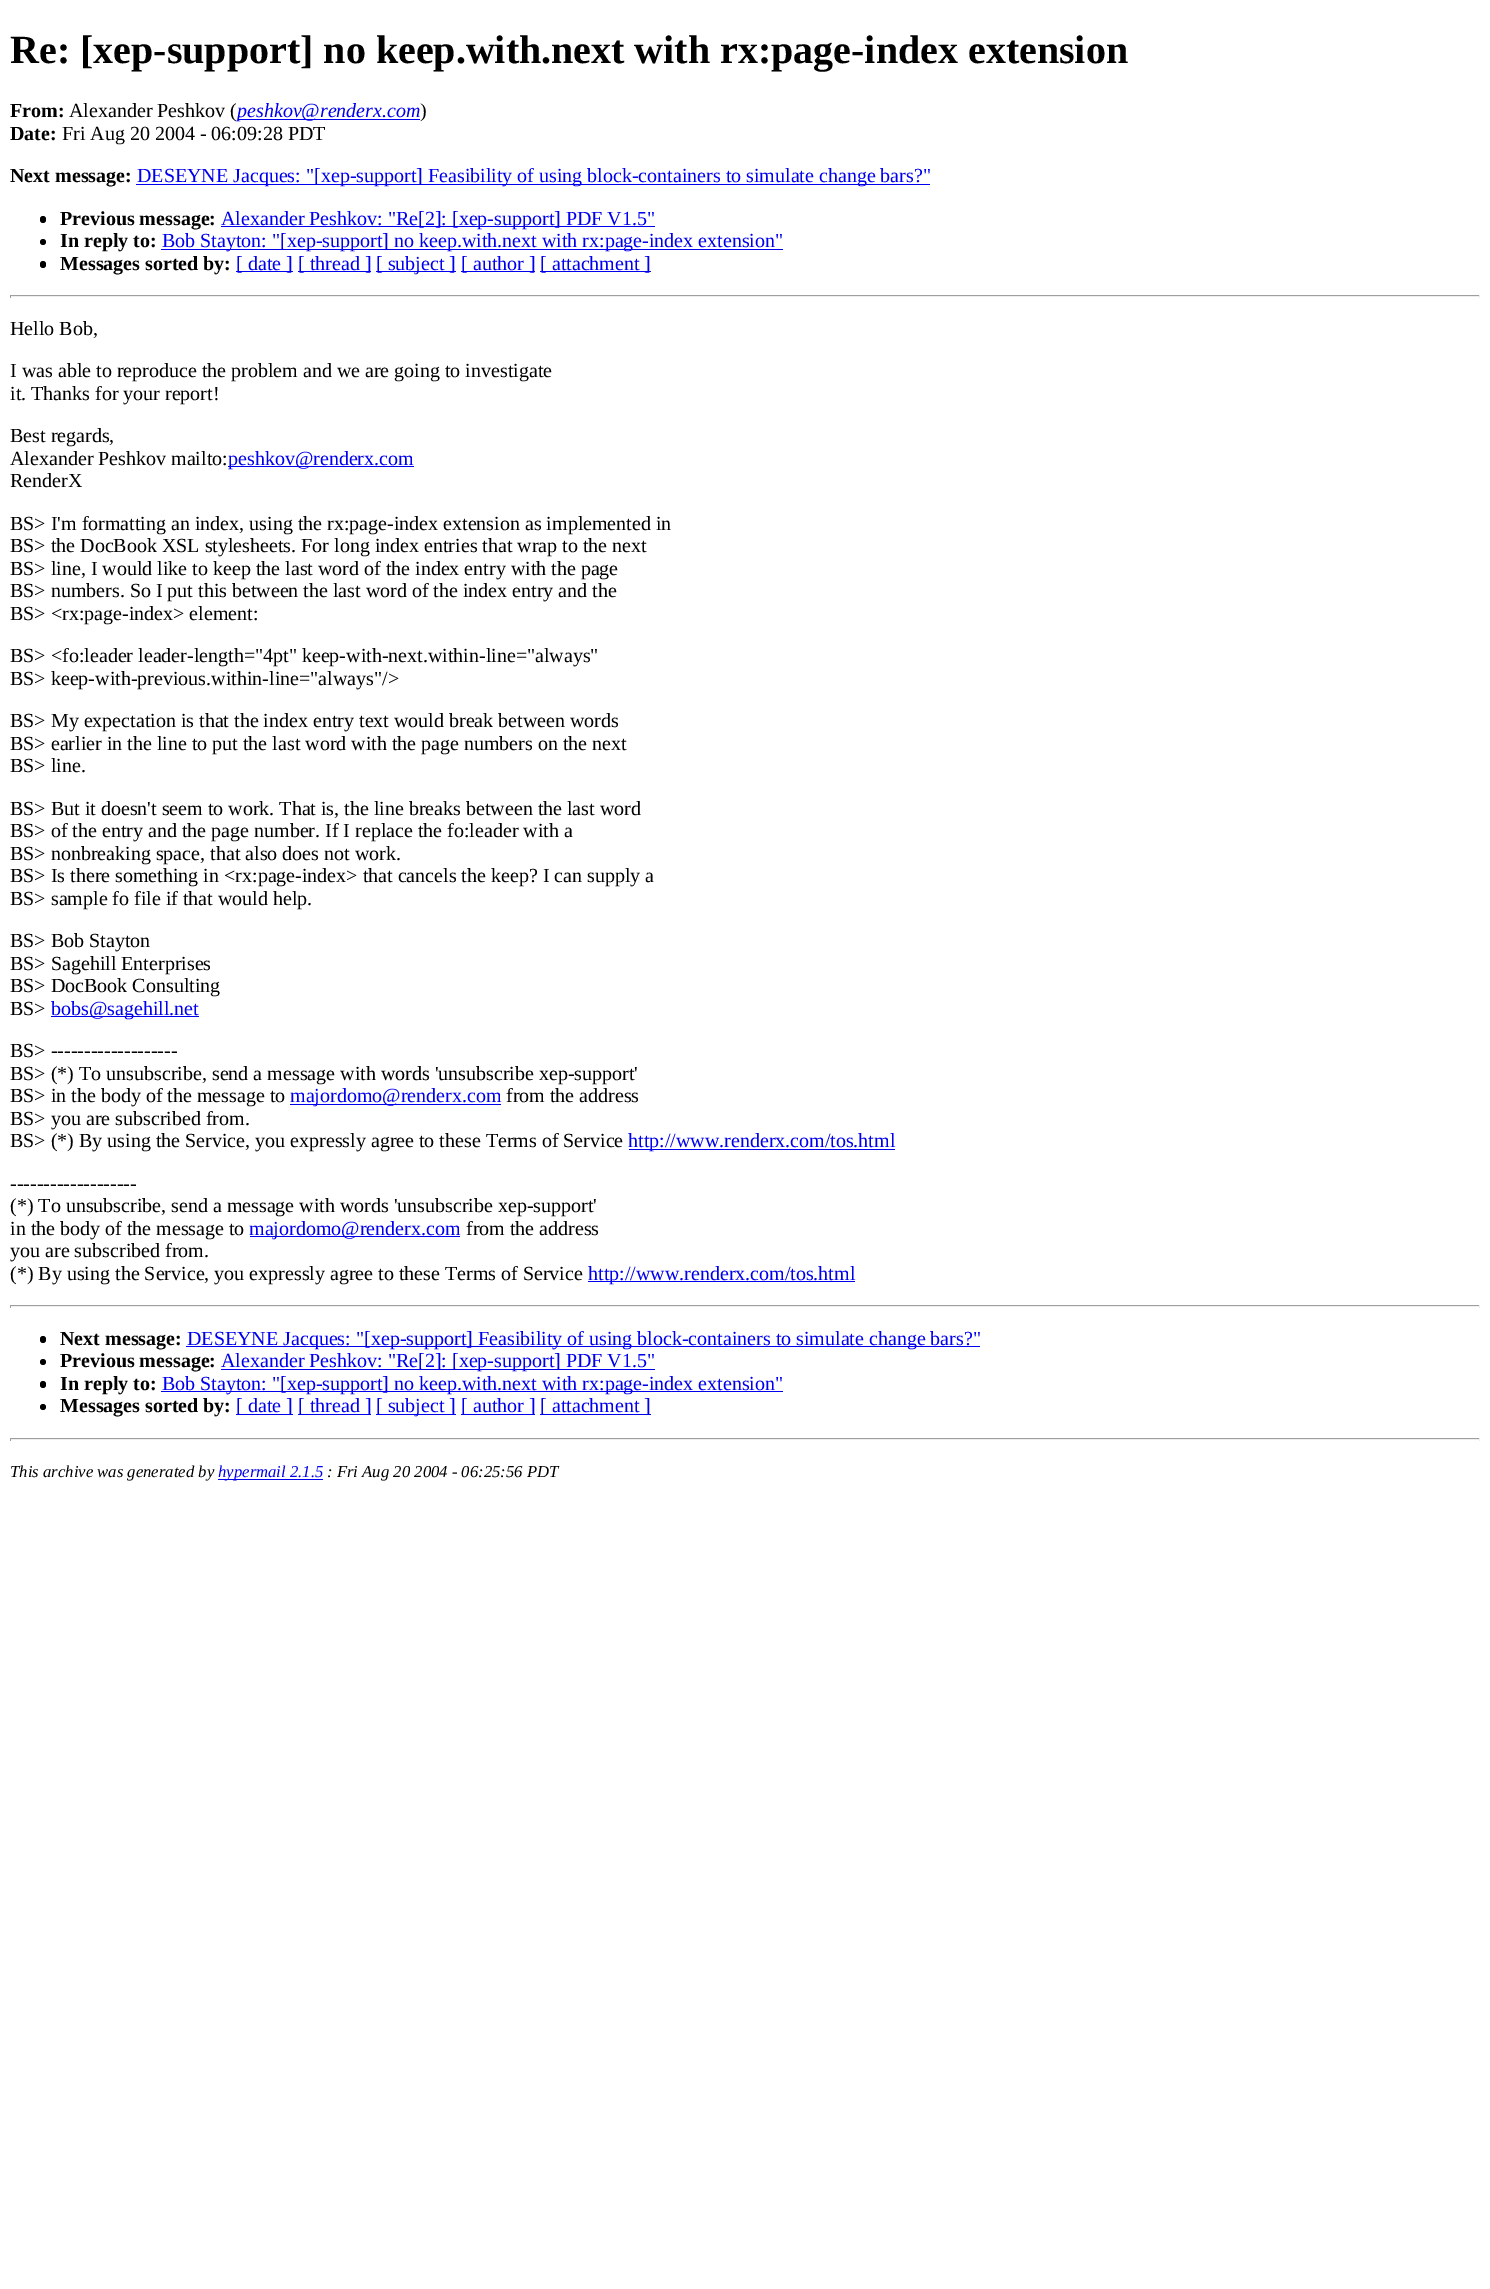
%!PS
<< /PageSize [1490 2289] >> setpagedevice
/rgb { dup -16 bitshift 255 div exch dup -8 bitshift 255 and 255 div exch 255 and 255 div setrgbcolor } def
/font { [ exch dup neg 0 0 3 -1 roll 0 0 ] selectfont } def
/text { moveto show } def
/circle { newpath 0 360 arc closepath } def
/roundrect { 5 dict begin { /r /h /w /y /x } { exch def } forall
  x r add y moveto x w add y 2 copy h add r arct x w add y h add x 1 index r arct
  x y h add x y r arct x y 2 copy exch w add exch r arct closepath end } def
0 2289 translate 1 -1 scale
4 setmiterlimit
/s1 { /LiberationSerif-Bold 40 font 16#000000 rgb } def
/s2 { /LiberationSerif-Bold 20 font 16#000000 rgb } def
/s3 { /LiberationSerif-Regular 20 font 16#000000 rgb } def
/s4 { /LiberationSerif-Italic 20 font 16#0000EE rgb } def
/s5 { /LiberationSerif-Regular 20 font 16#0000EE rgb } def
/s6 { /LiberationSerif-Italic 16.7 font 16#000000 rgb } def
/s7 { /LiberationSerif-Italic 16.7 font 16#0000EE rgb } def
16#FFFFFF rgb
0 0 1490 2289 rectfill
s1
(Re: [xep-support] no keep.with.next with rx:page-index extension) 10 63 text
s2
(From:) 10 117 text
s3
(Alexander Peshkov \() 69 117 text
16#0000EE rgb
238 119 182 1 rectfill
s4
(peshkov@renderx.com) 237 117 text
s3
(\)) 420 117 text
s2
(Date:) 10 140 text
s3
(Fri Aug 20 2004 - 06:09:28 PDT) 62 140 text
s2
(Next message:) 10 182 text
16#0000EE rgb
136 184 794 1 rectfill
s5
(DESEYNE Jacques: "[xep-support] Feasibility of using block-containers to simulate change bars?") 137 182 text
16#000000 rgb
40 216 6 7 3 roundrect fill
s2
(Previous message:) 60 225 text
16#0000EE rgb
221 226 434 1 rectfill
s5
(Alexander Peshkov: "Re[2]: [xep-support] PDF V1.5") 221 225 text
16#000000 rgb
43 242 3 circle fill
s2
(In reply to:) 60 247 text
16#0000EE rgb
161 249 622 1 rectfill
s5
(Bob Stayton: "[xep-support] no keep.with.next with rx:page-index extension") 162 247 text
16#000000 rgb
40 261 6 7 3 roundrect fill
s2
(Messages sorted by:) 60 270 text
16#0000EE rgb
236 271 57 1 rectfill
s5
([ date ]) 236 270 text
298 271 73 1 rectfill
([ thread ]) 298 270 text
376 271 80 1 rectfill
([ subject ]) 376 270 text
461 271 74 1 rectfill
([ author ]) 461 270 text
540 271 111 1 rectfill
([ attachment ]) 540 270 text
16#9F9F9F rgb
10 295 1470 1 rectfill
16#EEEEEE rgb
1479 295 1 3 rectfill
10 296 1470 1 rectfill
16#9F9F9F rgb
10 295 1 3 rectfill
s3
(Hello Bob,) 10 335 text
(I was able to reproduce the problem and we are going to investigate) 10 377 text
(it. Thanks for your report!) 10 400 text
(Best regards,) 10 442 text
(Alexander Peshkov mailto:) 10 465 text
16#0000EE rgb
228 466 186 1 rectfill
(peshkov@renderx.com) 228 465 text
s3
(RenderX) 10 487 text
(BS> I'm formatting an index, using the rx:page-index extension as implemented in) 10 530 text
(BS> the DocBook XSL stylesheets. For long index entries that wrap to the next) 10 552 text
(BS> line, I would like to keep the last word of the index entry with the page) 10 575 text
(BS> numbers. So I put this between the last word of the index entry and the) 10 597 text
(BS> <rx:page-index> element:) 10 620 text
(BS> <fo:leader leader-length="4pt" keep-with-next.within-line="always") 10 662 text
(BS> keep-with-previous.within-line="always"/>) 10 685 text
(BS> My expectation is that the index entry text would break between words) 10 727 text
(BS> earlier in the line to put the last word with the page numbers on the next) 10 750 text
(BS> line.) 10 772 text
(BS> But it doesn't seem to work. That is, the line breaks between the last word) 10 815 text
(BS> of the entry and the page number. If I replace the fo:leader with a) 10 837 text
(BS> nonbreaking space, that also does not work.) 10 860 text
(BS> Is there something in <rx:page-index> that cancels the keep? I can supply a) 10 882 text
(BS> sample fo file if that would help.) 10 905 text
(BS> Bob Stayton) 10 947 text
(BS> Sagehill Enterprises) 10 970 text
(BS> DocBook Consulting) 10 992 text
(BS>) 10 1015 text
16#0000EE rgb
51 1016 148 1 rectfill
(bobs@sagehill.net) 51 1015 text
s3
(BS> -------------------) 10 1057 text
(BS> \(*\) To unsubscribe, send a message with words 'unsubscribe xep-support') 10 1080 text
(BS> in the body of the message to) 10 1102 text
16#0000EE rgb
290 1104 211 1 rectfill
(majordomo@renderx.com) 290 1102 text
s3
(from the address) 506 1102 text
(BS> you are subscribed from.) 10 1125 text
(BS> \(*\) By using the Service, you expressly agree to these Terms of Service) 10 1147 text
16#0000EE rgb
629 1149 266 1 rectfill
(http://www.renderx.com/tos.html) 628 1147 text
s3
(-------------------) 10 1190 text
(\(*\) To unsubscribe, send a message with words 'unsubscribe xep-support') 10 1212 text
(in the body of the message to) 10 1235 text
16#0000EE rgb
250 1236 210 1 rectfill
(majordomo@renderx.com) 249 1235 text
s3
(from the address) 466 1235 text
(you are subscribed from.) 10 1257 text
(\(*\) By using the Service, you expressly agree to these Terms of Service) 10 1280 text
16#0000EE rgb
588 1281 267 1 rectfill
(http://www.renderx.com/tos.html) 588 1280 text
16#9F9F9F rgb
10 1305 1470 1 rectfill
16#EEEEEE rgb
1479 1305 1 3 rectfill
10 1306 1470 1 rectfill
16#9F9F9F rgb
10 1305 1 3 rectfill
16#000000 rgb
40 1336 6 7 3 roundrect fill
s2
(Next message:) 60 1345 text
16#0000EE rgb
186 1346 794 1 rectfill
s5
(DESEYNE Jacques: "[xep-support] Feasibility of using block-containers to simulate change bars?") 187 1345 text
16#000000 rgb
43 1362 3 circle fill
s2
(Previous message:) 60 1367 text
16#0000EE rgb
221 1369 434 1 rectfill
s5
(Alexander Peshkov: "Re[2]: [xep-support] PDF V1.5") 221 1367 text
16#000000 rgb
40 1381 6 7 3 roundrect fill
s2
(In reply to:) 60 1390 text
16#0000EE rgb
161 1391 622 1 rectfill
s5
(Bob Stayton: "[xep-support] no keep.with.next with rx:page-index extension") 162 1390 text
16#000000 rgb
43 1407 3 circle fill
s2
(Messages sorted by:) 60 1412 text
16#0000EE rgb
236 1414 57 1 rectfill
s5
([ date ]) 236 1412 text
298 1414 73 1 rectfill
([ thread ]) 298 1412 text
376 1414 80 1 rectfill
([ subject ]) 376 1412 text
461 1414 74 1 rectfill
([ author ]) 461 1412 text
540 1414 111 1 rectfill
([ attachment ]) 540 1412 text
16#9F9F9F rgb
10 1438 1470 1 rectfill
16#EEEEEE rgb
1479 1438 1 3 rectfill
10 1439 1470 1 rectfill
16#9F9F9F rgb
10 1438 1 3 rectfill
s6
(This archive was generated by) 10 1477 text
16#0000EE rgb
218 1479 105 1 rectfill
(hypermail 2.1.5) 218 1477 text
s6
(: Fri Aug 20 2004 - 06:25:56 PDT) 327 1477 text
showpage
